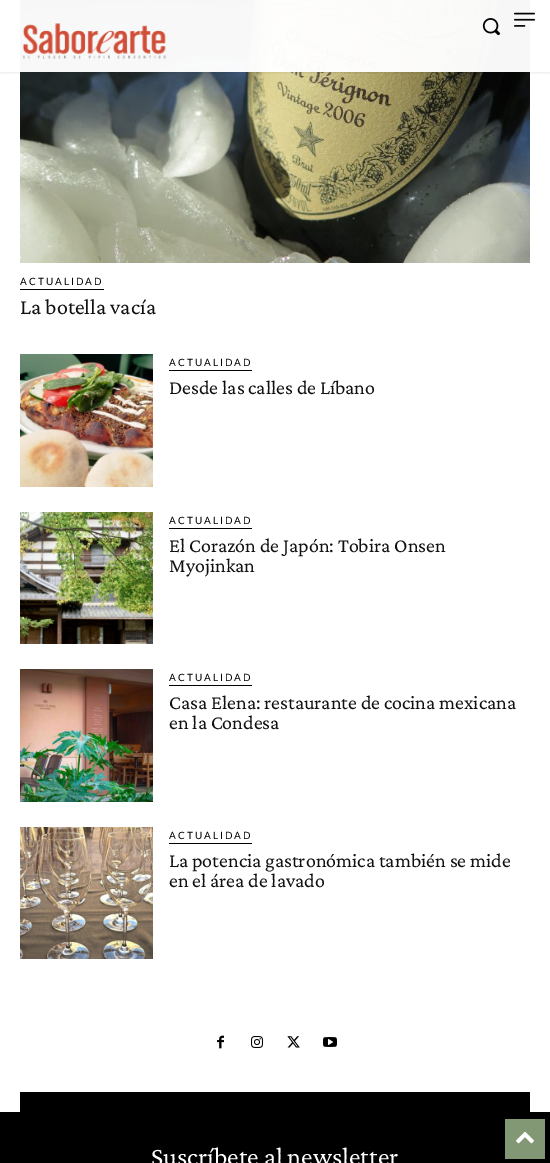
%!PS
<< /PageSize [550 1163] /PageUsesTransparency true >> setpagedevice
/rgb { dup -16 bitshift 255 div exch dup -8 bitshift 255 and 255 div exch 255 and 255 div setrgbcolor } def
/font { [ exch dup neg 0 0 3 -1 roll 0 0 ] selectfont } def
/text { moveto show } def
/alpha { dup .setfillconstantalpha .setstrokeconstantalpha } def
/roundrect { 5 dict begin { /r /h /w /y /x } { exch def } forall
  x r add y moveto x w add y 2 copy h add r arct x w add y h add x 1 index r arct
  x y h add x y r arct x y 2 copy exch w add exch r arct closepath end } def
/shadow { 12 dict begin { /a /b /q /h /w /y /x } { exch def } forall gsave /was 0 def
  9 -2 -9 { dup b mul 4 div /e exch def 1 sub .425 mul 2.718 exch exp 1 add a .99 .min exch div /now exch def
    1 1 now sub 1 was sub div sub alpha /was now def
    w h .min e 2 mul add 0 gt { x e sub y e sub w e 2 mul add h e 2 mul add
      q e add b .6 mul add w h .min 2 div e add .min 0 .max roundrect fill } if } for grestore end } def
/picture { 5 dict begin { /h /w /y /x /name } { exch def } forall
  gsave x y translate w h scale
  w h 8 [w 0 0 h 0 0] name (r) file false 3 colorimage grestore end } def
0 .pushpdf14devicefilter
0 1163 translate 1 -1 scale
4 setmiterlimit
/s1 { /CrimsonPro-Regular 22 font 16#111111 rgb } def
/s2 { /CrimsonPro-Regular 20 font 16#111111 rgb } def
/s3 { /CrimsonPro-Regular 26 font 16#FFFFFF rgb } def
16#FFFFFF rgb
0 0 550 1163 rectfill
(pic4.raw) 20 0 510 263 picture
0.97 alpha
20 0 510 72 rectfill
1 alpha
(pic1.raw) 22 23 145 37 picture
(pic2.raw) 482 18 18 18 picture
(pic3.raw) 514 12 21 15 picture
gsave
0 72 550 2 rectclip
16#000000 rgb
0 1 550 72 0 2 0.08 shadow
grestore
16#000000 rgb
20 289 84 1 rectfill
/Lato-Regular 10 font
20 285 moveto 2 0 (ACTUALIDAD) ashow
s1
(La botella vacía) 20 314 text
(pic5.raw) 20 354 133 133 picture
16#000000 rgb
169 370 83 1 rectfill
/Lato-Regular 10 font
169 366 moveto 2 0 (ACTUALIDAD) ashow
s2
(Desde las calles de Líbano) 169 394 text
(pic6.raw) 20 512 133 132 picture
16#000000 rgb
169 528 83 1 rectfill
/Lato-Regular 10 font
169 524 moveto 2 0 (ACTUALIDAD) ashow
s2
(El Corazón de Japón: Tobira Onsen) 169 552 text
(Myojinkan) 169 572 text
(pic7.raw) 20 669 133 133 picture
16#000000 rgb
169 685 83 1 rectfill
/Lato-Regular 10 font
169 681 moveto 2 0 (ACTUALIDAD) ashow
s2
(Casa Elena: restaurante de cocina mexicana) 169 709 text
(en la Condesa) 169 729 text
(pic8.raw) 20 827 133 132 picture
16#000000 rgb
169 843 83 1 rectfill
/Lato-Regular 10 font
169 839 moveto 2 0 (ACTUALIDAD) ashow
s2
(La potencia gastronómica también se mide) 169 867 text
(en el área de lavado) 169 887 text
(pic9.raw) 217 1035 7 14 picture
(pic10.raw) 251 1036 12 12 picture
(pic11.raw) 287 1036 13 12 picture
(pic12.raw) 323 1037 14 10 picture
16#000000 rgb
0 1112 550 51 rectfill
20 1092 510 20 rectfill
s3
(Suscríbete al newsletter) 151 1165 text
16#829875 rgb
505 1119 40 40 rectfill
(pic13.raw) 516 1131 18 13 picture
.poppdf14devicefilter showpage
